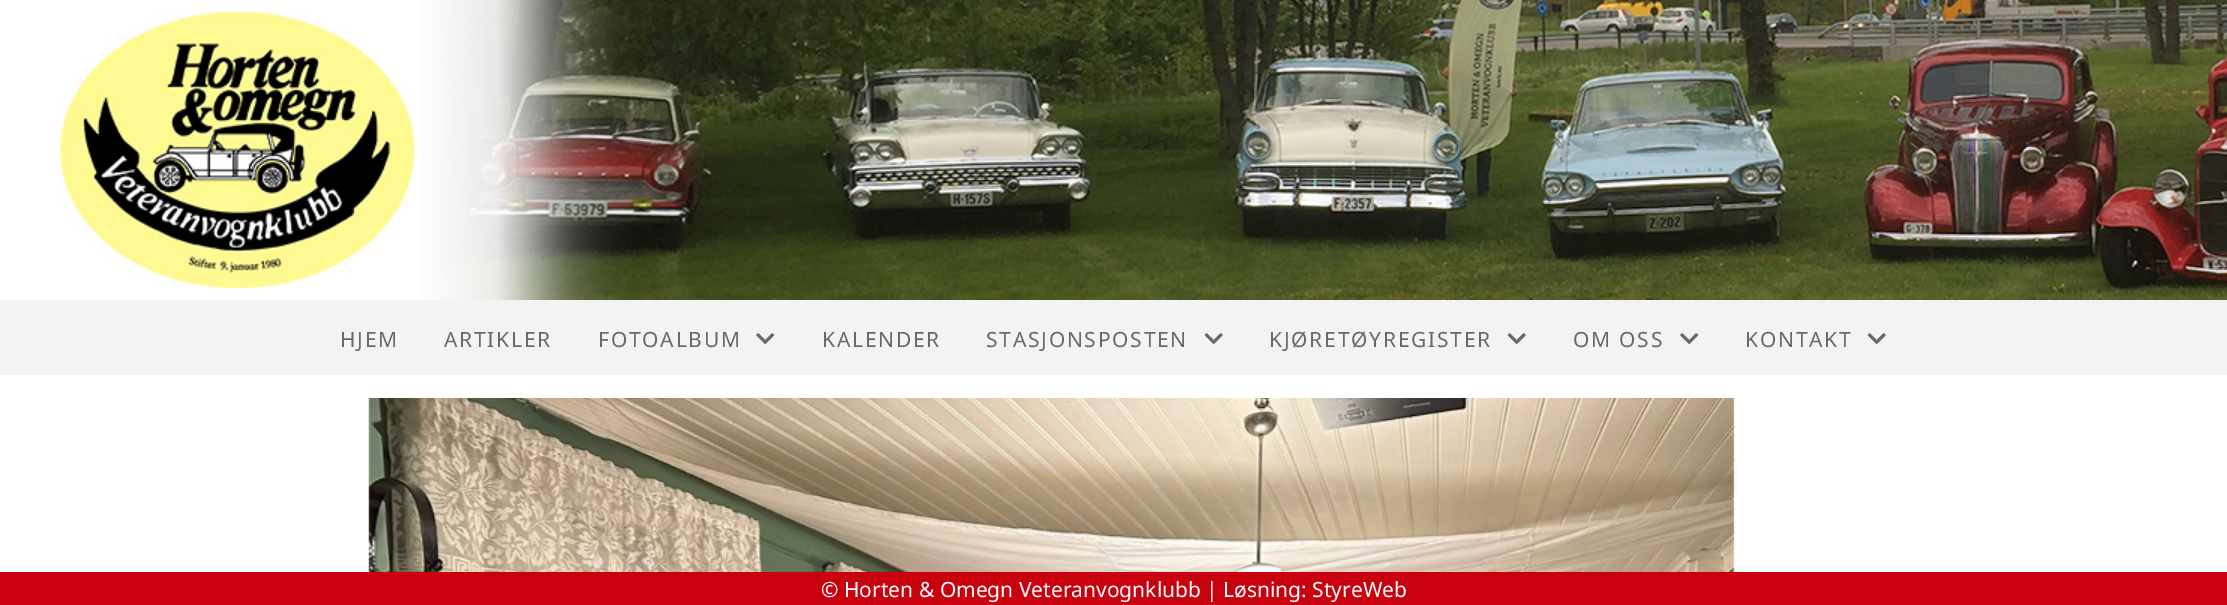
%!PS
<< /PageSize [2227 605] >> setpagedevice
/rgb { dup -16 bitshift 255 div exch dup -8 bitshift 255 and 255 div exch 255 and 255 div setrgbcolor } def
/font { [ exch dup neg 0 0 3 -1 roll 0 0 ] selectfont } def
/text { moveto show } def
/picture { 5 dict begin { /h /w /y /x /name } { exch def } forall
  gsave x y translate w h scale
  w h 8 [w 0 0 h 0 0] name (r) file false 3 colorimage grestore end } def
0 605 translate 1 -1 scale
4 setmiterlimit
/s1 { /NotoSans-Regular 21 font 16#FFFFFF rgb } def
16#FFFFFF rgb
0 0 2227 605 rectfill
(pic1.raw) 59 0 2168 300 picture
16#F3F3F3 rgb
0 300 2227 75 rectfill
/NotoSans-Regular 21 font
16#696969 rgb
340 347 moveto 1.75 0 (HJEM) ashow
444 347 moveto 1.75 0 (ARTIKLER) ashow
598 347 moveto 1.75 0 (FOTOALBUM) ashow
(pic2.raw) 756 333 19 11 picture
822 347 moveto 1.75 0 (KALENDER) ashow
986 347 moveto 1.75 0 (STASJONSPOSTEN) ashow
(pic3.raw) 1204 333 19 11 picture
1269 347 moveto 1.75 0 (KJØRETØYREGISTER) ashow
(pic3.raw) 1507 333 19 11 picture
1573 347 moveto 1.75 0 (OM OSS) ashow
(pic2.raw) 1680 333 19 11 picture
1745 347 moveto 1.75 0 (KONTAKT) ashow
(pic3.raw) 1867 333 19 11 picture
(pic4.raw) 368 398 1368 174 picture
16#C9000D rgb
0 572 2227 33 rectfill
s1
(© Horten & Omegn Veteranvognklubb | Løsning: StyreWeb) 821 597 text
showpage
